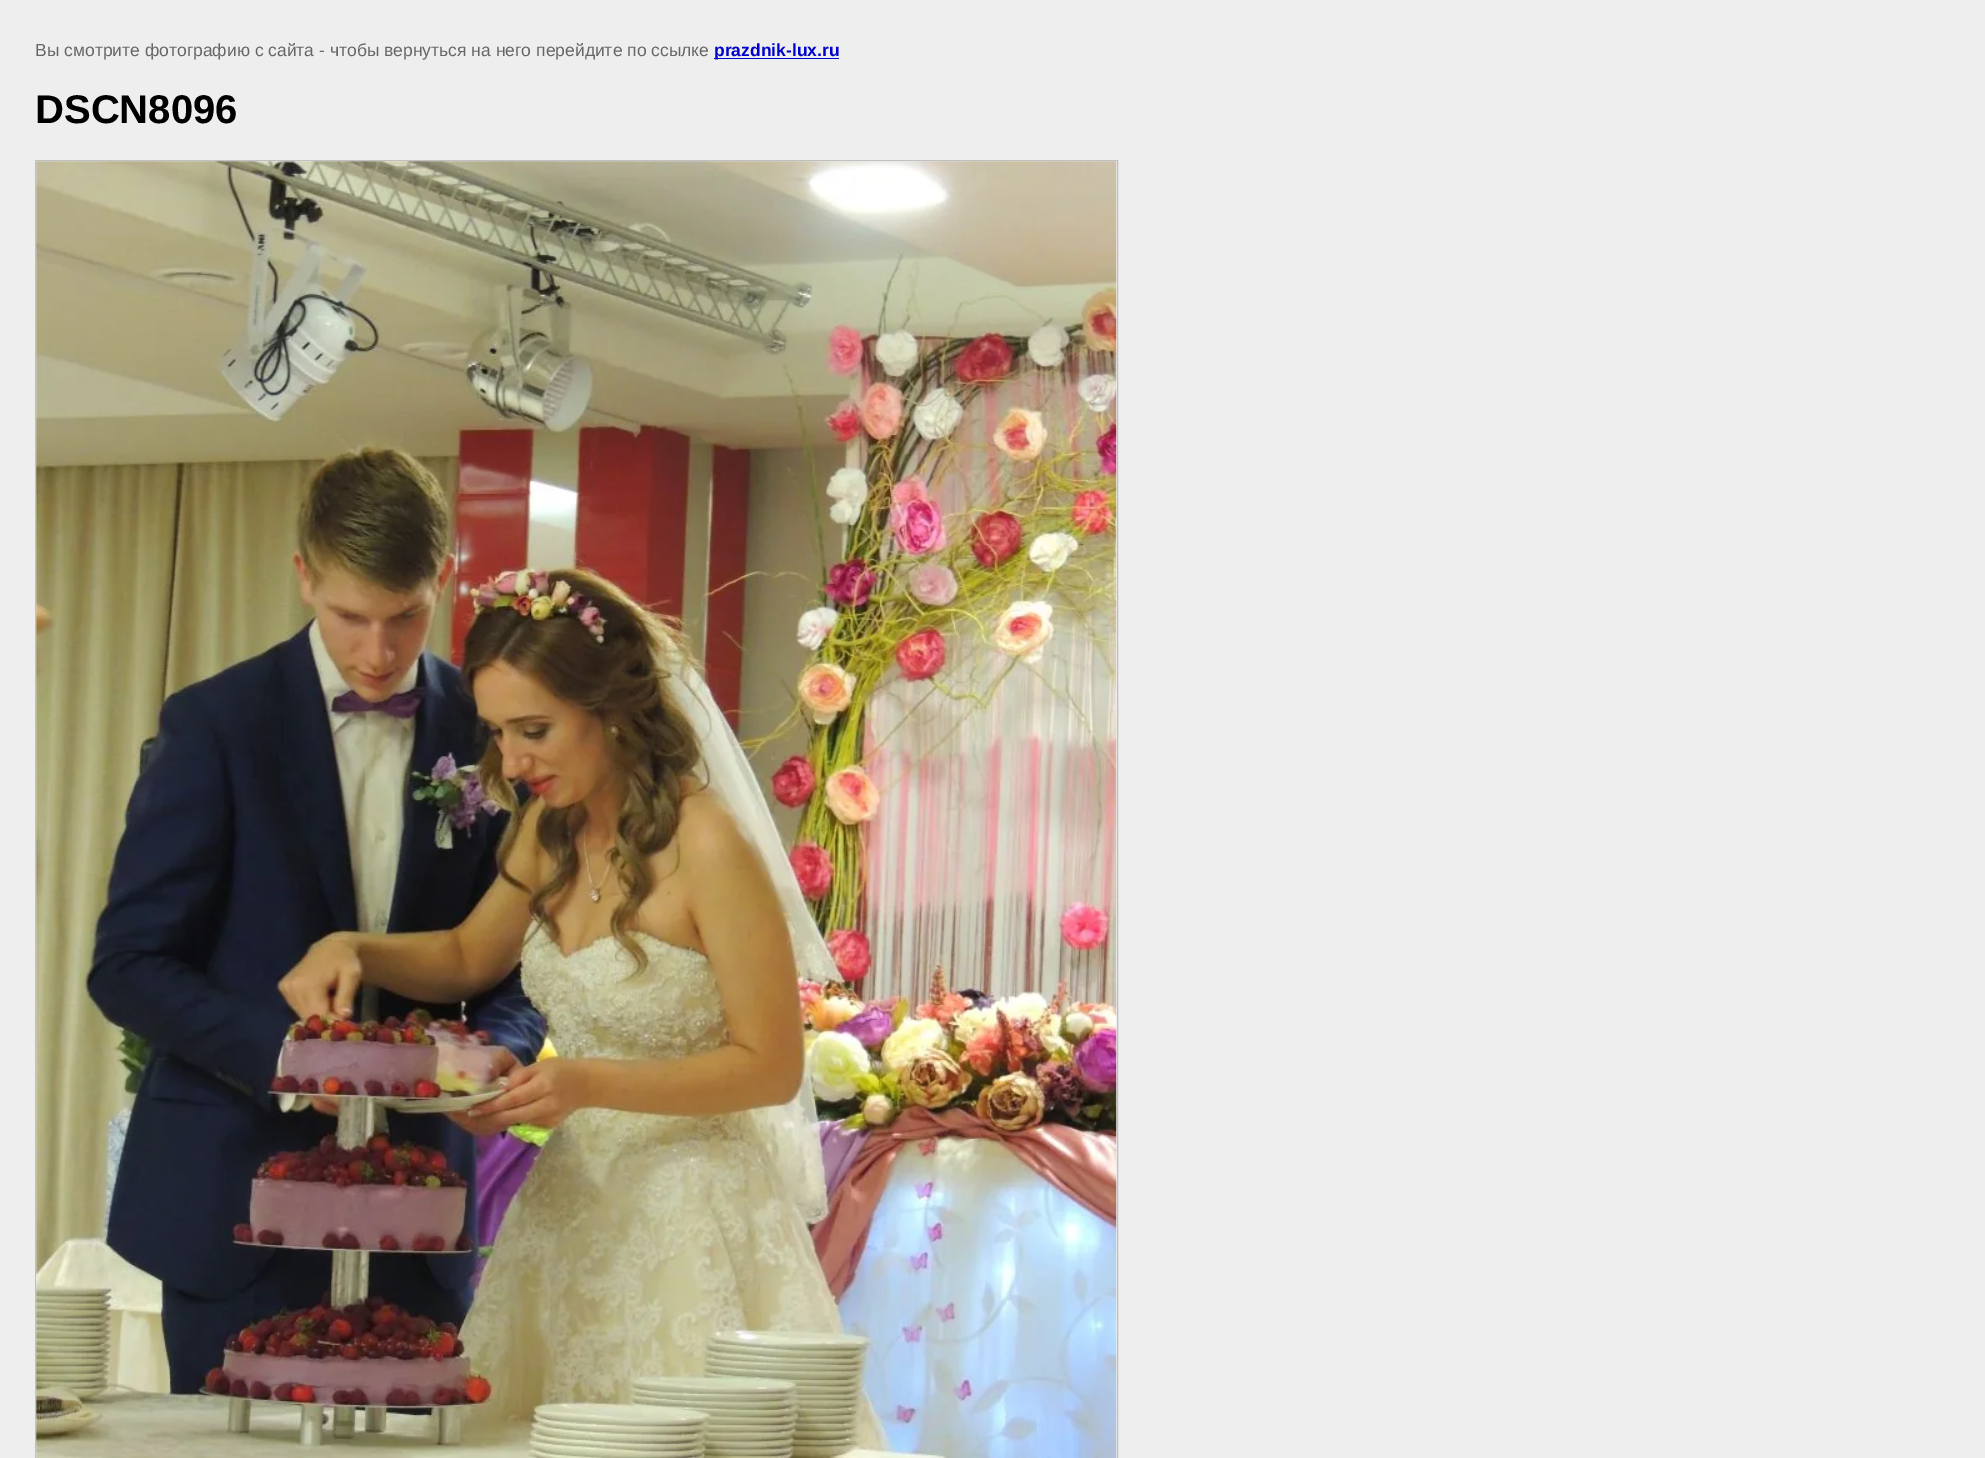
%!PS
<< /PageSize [1985 1458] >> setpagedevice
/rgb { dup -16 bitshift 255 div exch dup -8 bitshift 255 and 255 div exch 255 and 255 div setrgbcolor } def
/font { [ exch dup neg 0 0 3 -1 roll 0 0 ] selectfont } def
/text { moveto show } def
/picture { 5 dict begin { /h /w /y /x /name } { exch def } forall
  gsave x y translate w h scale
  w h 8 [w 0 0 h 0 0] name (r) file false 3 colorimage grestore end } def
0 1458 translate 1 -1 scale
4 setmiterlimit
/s1 { /LiberationSans-Regular 17.5 font 16#666666 rgb } def
/s2 { /LiberationSans-Bold 17.5 font 16#0000CC rgb } def
/s3 { /LiberationSans-Bold 40 font 16#000000 rgb } def
16#EEEEEE rgb
0 0 1985 1458 rectfill
s1
(Вы смотрите фотографию с сайта - чтобы вернуться на него перейдите по ссылке) 35 56 text
16#0000CC rgb
714 58 125 1 rectfill
s2
(prazdnik-lux.ru) 714 56 text
s3
(DSCN8096) 35 123 text
16#C0C0C0 rgb
35.5 160.5 1082 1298 rectstroke
(pic1.raw) 36 161 1081 1297 picture
showpage
